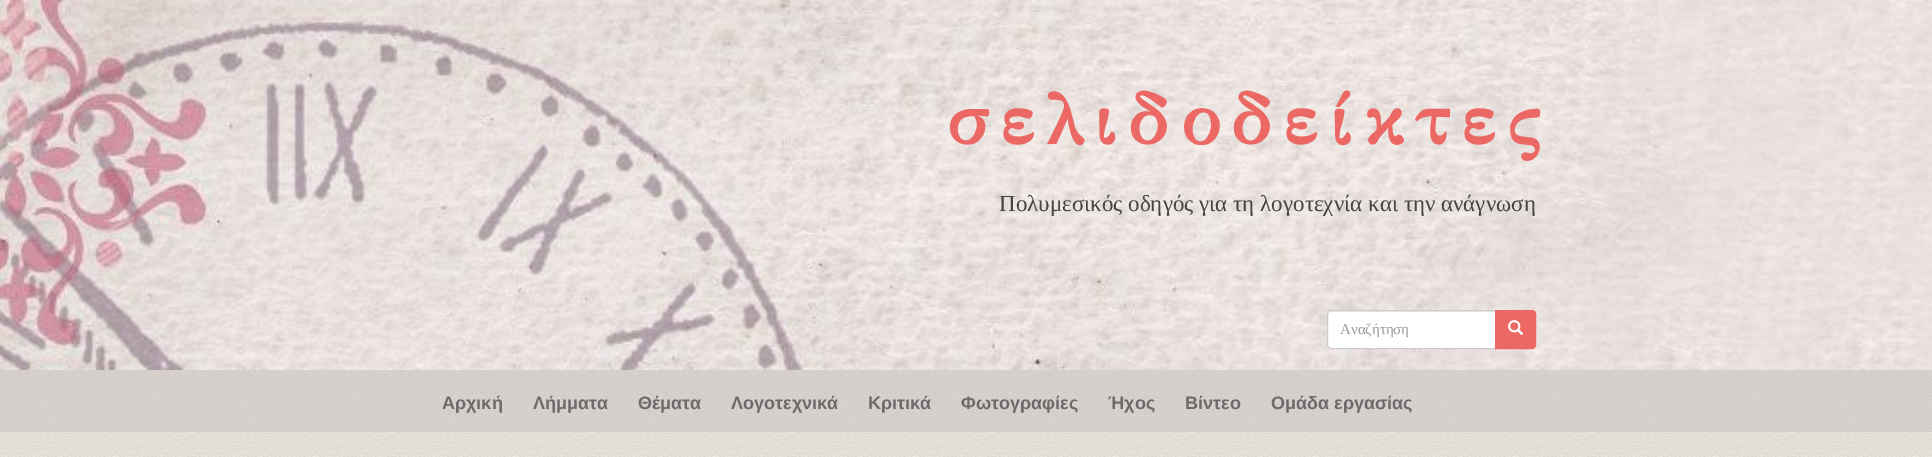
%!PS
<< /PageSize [1932 457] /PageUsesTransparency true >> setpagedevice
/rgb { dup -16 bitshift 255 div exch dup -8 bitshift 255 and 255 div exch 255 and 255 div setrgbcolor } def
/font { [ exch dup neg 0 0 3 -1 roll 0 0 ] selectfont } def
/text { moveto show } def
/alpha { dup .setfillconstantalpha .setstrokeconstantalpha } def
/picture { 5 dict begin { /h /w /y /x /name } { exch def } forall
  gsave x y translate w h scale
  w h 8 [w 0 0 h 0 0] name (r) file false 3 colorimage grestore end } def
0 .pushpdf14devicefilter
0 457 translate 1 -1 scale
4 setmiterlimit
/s1 { /Tinos-Regular 23 font 16#444444 rgb } def
/s2 { /LiberationSerif-Regular 15 font 16#999999 rgb } def
/s3 { /LiberationSans-Bold 18 font 16#6C6A6A rgb } def
16#FFFFFF rgb
0 0 1932 457 rectfill
(pic1.raw) 0 370 1932 87 picture
(pic2.raw) 0 0 1932 370 picture
/GFSDidot-Bold 71.75 font
16#EB6864 rgb
947 144 moveto 12 0 (σελιδοδείκτες) ashow
s1
(Πολυμεσικός οδηγός για τη λογοτεχνία και την ανάγνωση) 999 211 text
16#FFFFFF rgb
1331 310 moveto 1496 310 lineto 1496 349 lineto 1331 349 lineto 1329 349 1327 347 1327 345 curveto 1327 314 lineto 1327 312 1329 310 1331 310 curveto closepath fill
16#ECECEC rgb
1331 312 moveto 1495 312 lineto 1495 311 lineto 1330 311 lineto 1328 311 1328 313 1328 315 curveto 1328 313 1329 312 1331 312 curveto closepath fill
16#CCCCCC rgb
1331 310.5 moveto 1495.5 310.5 lineto 1495.5 348.5 lineto 1331 348.5 lineto 1329 348.5 1327.5 347 1327.5 345 curveto 1327.5 314 lineto 1327.5 312 1329 310.5 1331 310.5 curveto closepath stroke
s2
(Αναζήτηση) 1340 334 text
16#EB6864 rgb
1495.5 310.5 moveto 1532 310.5 lineto 1534 310.5 1535.5 312 1535.5 314 curveto 1535.5 345 lineto 1535.5 347 1534 348.5 1532 348.5 curveto 1495.5 348.5 lineto closepath gsave fill grestore
stroke
(pic3.raw) 1508 320 16 15 picture
0.4 alpha
16#C2B8BD rgb
0 370 1932 62 rectfill
1 alpha
s3
(Αρχική) 442 409 text
(Λήμματα) 533 409 text
(Θέματα) 638 409 text
(Λογοτεχνικά) 731 409 text
(Κριτικά) 868 409 text
(Φωτογραφίες) 961 409 text
(Ήχος) 1108 409 text
(Βίντεο) 1185 409 text
(Ομάδα εργασίας) 1271 409 text
.poppdf14devicefilter showpage
